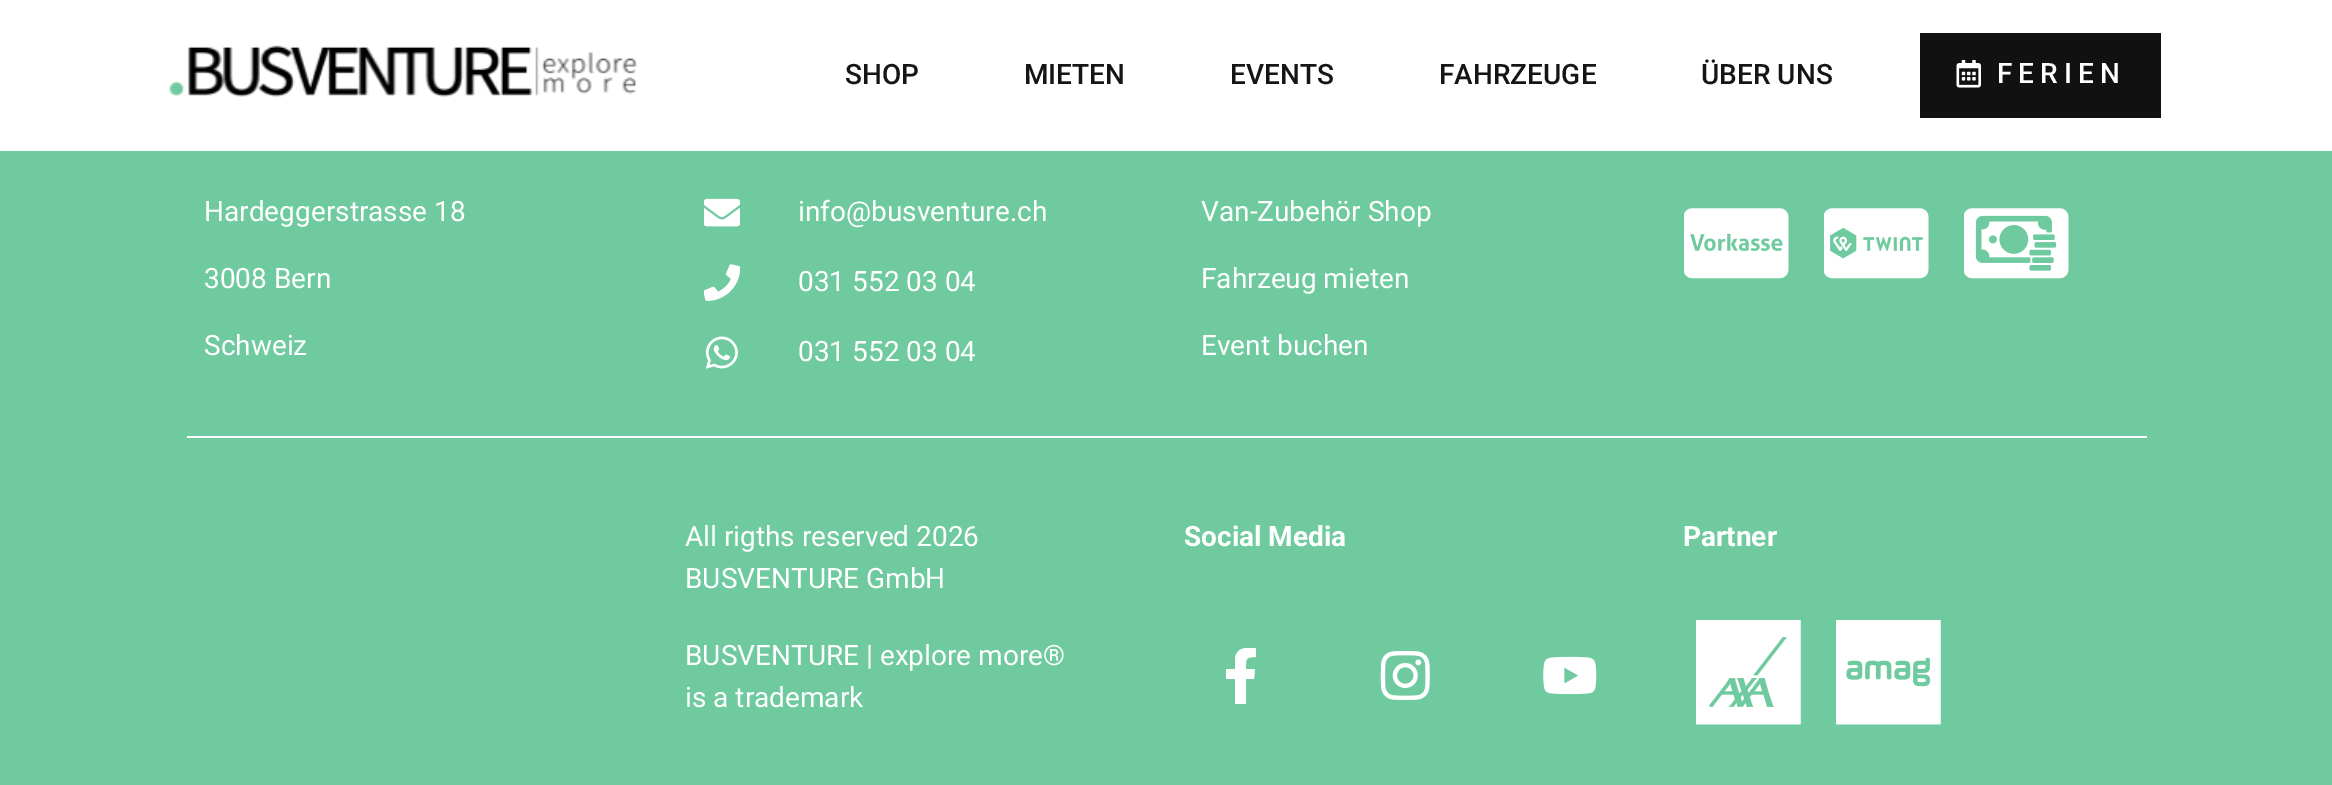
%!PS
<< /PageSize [2332 785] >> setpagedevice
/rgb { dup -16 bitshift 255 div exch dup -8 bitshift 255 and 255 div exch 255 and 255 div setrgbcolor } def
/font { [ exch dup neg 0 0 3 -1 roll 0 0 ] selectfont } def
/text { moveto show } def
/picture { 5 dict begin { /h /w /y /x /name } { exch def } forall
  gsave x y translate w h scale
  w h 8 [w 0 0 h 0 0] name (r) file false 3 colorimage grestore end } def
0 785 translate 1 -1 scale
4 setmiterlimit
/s1 { /Roboto-Medium 28 font 16#151515 rgb } def
/s2 { /Roboto-Regular 28 font 16#FFFFFF rgb } def
/s3 { /Roboto-Bold 28 font 16#FFFFFF rgb } def
16#6FCB9F rgb
0 0 2332 785 rectfill
16#FFFFFF rgb
0 0 2332 151 rectfill
(pic1.raw) 169 45 468 52 picture
s1
(SHOP) 845 84 text
(MIETEN) 1024 84 text
(EVENTS) 1230 84 text
(FAHRZEUGE) 1439 84 text
(ÜBER UNS) 1701 84 text
16#111112 rgb
1920 33 241 85 rectfill
(pic2.raw) 1956 60 25 28 picture
16#FFFFFF rgb
1997 83 moveto 6 0 (FERIEN) ashow
s2
(Hardeggerstrasse 18) 204 221 text
(3008 Bern) 204 288 text
(Schweiz) 204 355 text
(pic3.raw) 704 198 36 29 picture
(info@busventure.ch) 798 221 text
(pic4.raw) 704 264 36 37 picture
(031 552 03 04) 798 291 text
(pic5.raw) 705 336 33 33 picture
(031 552 03 04) 798 361 text
(Van-Zubehör Shop) 1201 221 text
(Fahrzeug mieten) 1201 288 text
(Event buchen) 1201 355 text
(pic6.raw) 1684 208 105 71 picture
(pic7.raw) 1824 208 105 71 picture
(pic8.raw) 1964 208 105 71 picture
187 436 1960 2 rectfill
(All rigths reserved 2026) 685 546 text
(BUSVENTURE GmbH) 685 588 text
(BUSVENTURE | explore more®) 685 665 text
(is a trademark) 685 707 text
s3
(Social Media) 1184 546 text
gsave
1213 648 56 56 rectclip
1254 679 moveto 1255 669 lineto 1246 669 lineto 1246 659 1245 657 1256 657 curveto 1256 648 lineto 1247 647 1237 647 1235 658 curveto 1235 669 lineto 1226 669 lineto 1226 679 lineto 1235 679 lineto 1235 704 lineto 1246 704 lineto 1246 679 lineto closepath fill
grestore
(pic9.raw) 1380 651 50 49 picture
(pic10.raw) 1543 656 54 39 picture
(Partner) 1683 546 text
(pic11.raw) 1696 620 105 105 picture
(pic12.raw) 1836 620 105 105 picture
showpage
